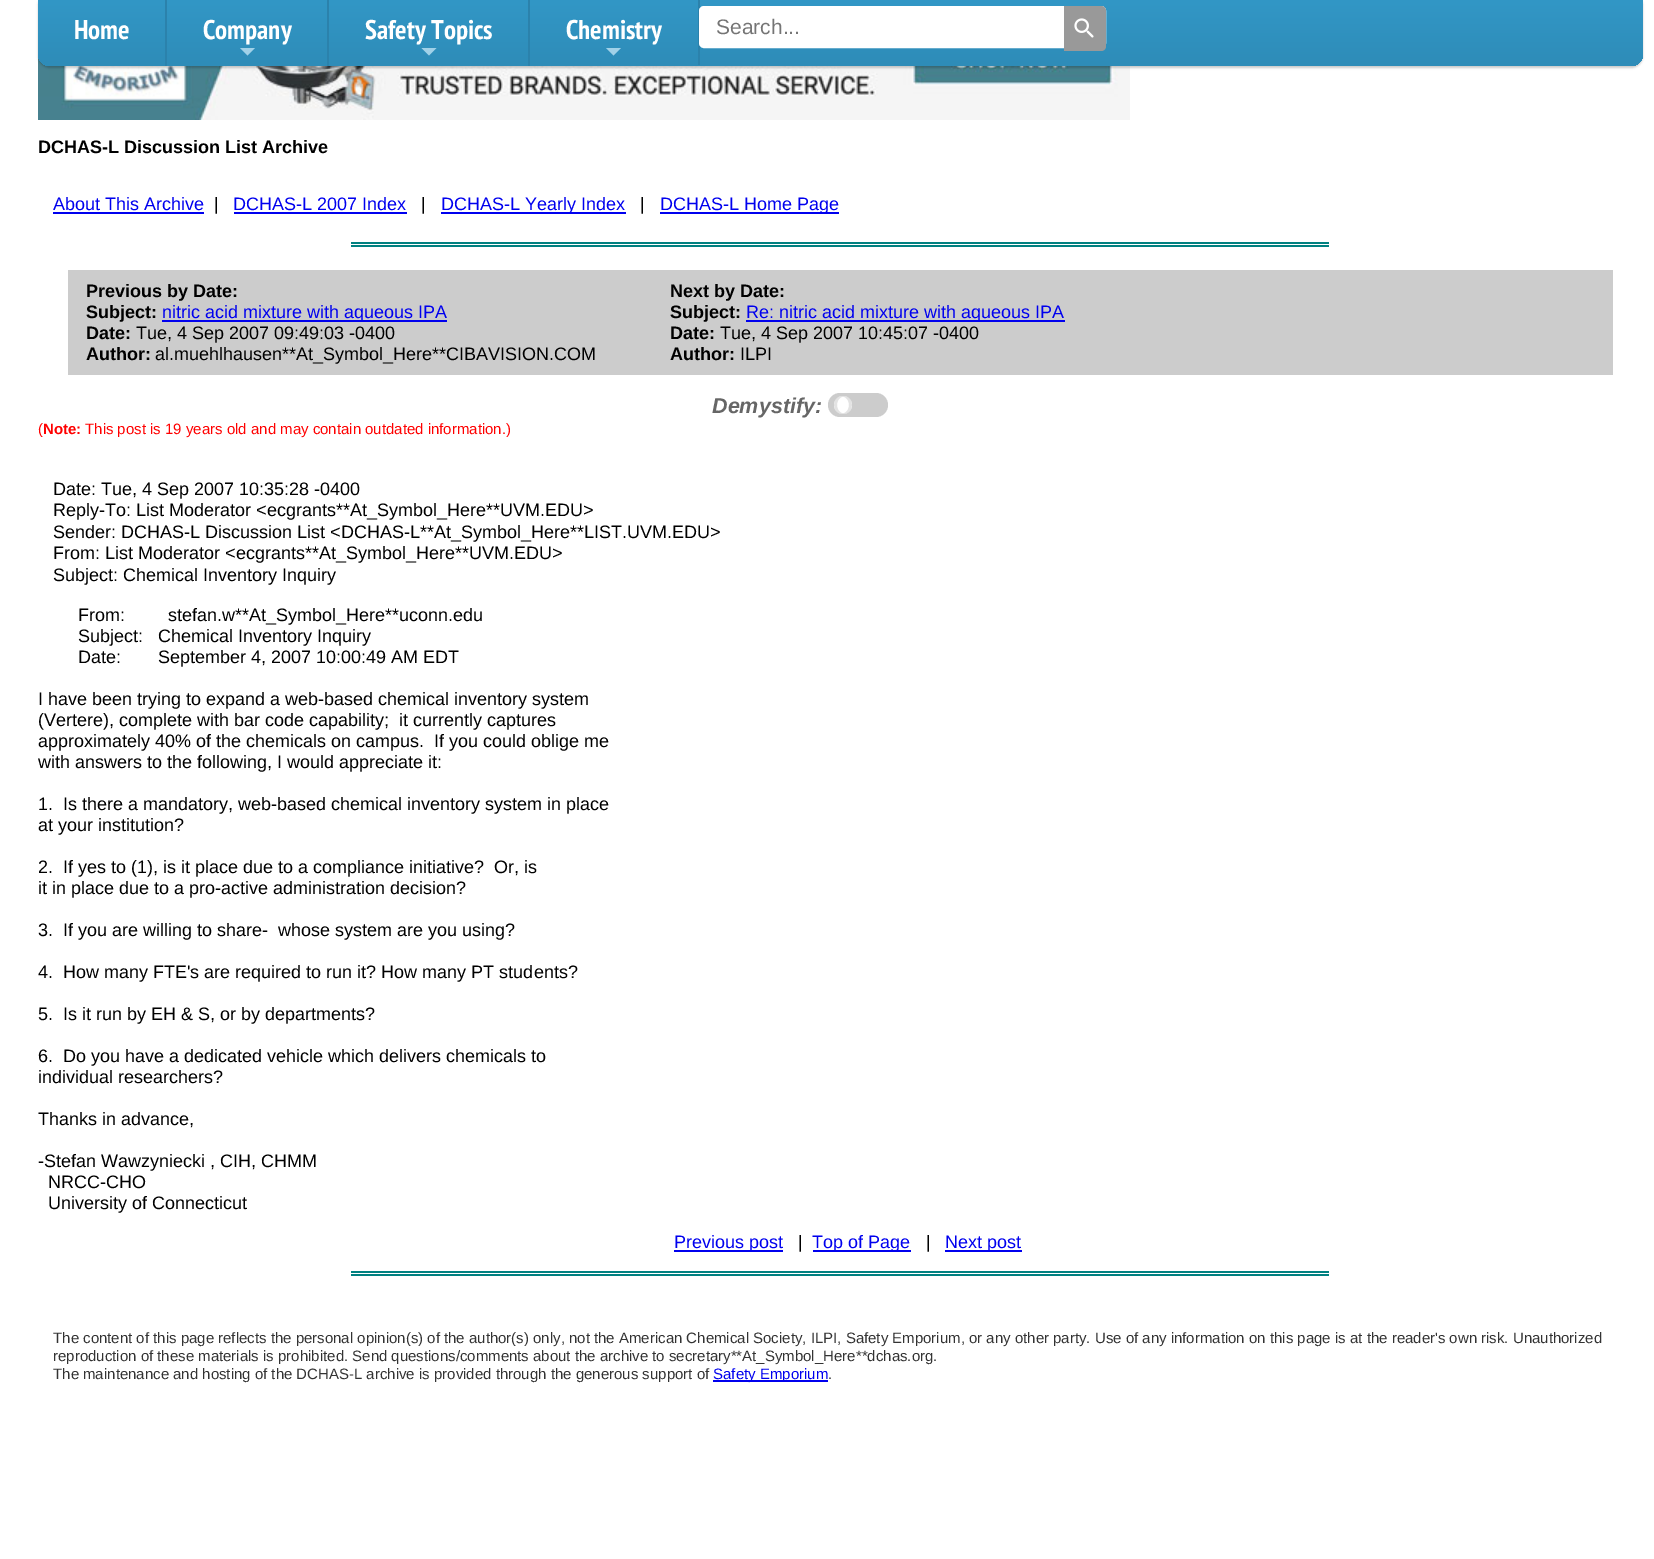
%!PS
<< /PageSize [1654 1559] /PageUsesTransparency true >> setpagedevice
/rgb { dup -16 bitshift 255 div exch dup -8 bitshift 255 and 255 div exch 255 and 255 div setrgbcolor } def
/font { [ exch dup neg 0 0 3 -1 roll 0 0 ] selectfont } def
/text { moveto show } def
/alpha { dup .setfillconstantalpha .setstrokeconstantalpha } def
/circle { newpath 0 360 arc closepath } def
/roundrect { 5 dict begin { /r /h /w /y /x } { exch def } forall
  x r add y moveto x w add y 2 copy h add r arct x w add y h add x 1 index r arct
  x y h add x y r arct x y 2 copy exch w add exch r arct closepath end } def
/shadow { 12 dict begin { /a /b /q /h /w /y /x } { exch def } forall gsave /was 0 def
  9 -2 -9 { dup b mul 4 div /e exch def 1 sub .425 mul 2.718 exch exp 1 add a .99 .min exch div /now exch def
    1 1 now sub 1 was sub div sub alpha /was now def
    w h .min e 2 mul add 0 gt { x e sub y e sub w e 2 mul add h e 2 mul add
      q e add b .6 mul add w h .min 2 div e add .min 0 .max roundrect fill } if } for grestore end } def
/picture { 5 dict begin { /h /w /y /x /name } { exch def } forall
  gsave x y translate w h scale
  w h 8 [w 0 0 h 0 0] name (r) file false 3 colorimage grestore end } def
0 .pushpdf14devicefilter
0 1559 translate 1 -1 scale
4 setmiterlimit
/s1 { /PTSansNarrow-Bold 27 font 16#FFFFFF rgb } def
/s2 { /LiberationSans-Regular 21 font 16#757575 rgb } def
/s3 { /LiberationSans-Bold 18 font 16#000000 rgb } def
/s4 { /LiberationSans-Regular 18 font 16#0000EE rgb } def
/s5 { /LiberationSans-Regular 18 font 16#000000 rgb } def
/s6 { /LiberationSans-BoldItalic 21.5 font 16#666666 rgb } def
/s7 { /LiberationSans-Regular 15 font 16#FF0000 rgb } def
/s8 { /LiberationSans-Bold 15 font 16#FF0000 rgb } def
/s9 { /LiberationSans-Regular 15 font 16#333333 rgb } def
/s10 { /LiberationSans-Regular 15 font 16#0000EE rgb } def
16#FFFFFF rgb
0 0 1654 1559 rectfill
(pic1.raw) 38 0 1092 120 picture
16#000000 rgb
38 -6 1605 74 12 1 0.2 shadow
gsave 38 -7 1605 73 12 roundrect clip newpath
<< /ShadingType 2 /ColorSpace /DeviceRGB /Coords [840 -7.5 840 66] /Extend [true true] /Function << /FunctionType 2 /Domain [0 1] /C0 [0.196 0.596 0.784] /C1 [0.18 0.549 0.722] /N 1 >> >> shfill grestore
gsave 50 -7 moveto 165 -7 lineto 165 66 lineto 50 66 lineto 43.5 66 38 60.5 38 54 curveto 38 5 lineto 38 -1.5 43.5 -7 50 -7 curveto closepath clip newpath
<< /ShadingType 2 /ColorSpace /DeviceRGB /Coords [101 -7.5 101 66] /Extend [true true] /Function << /FunctionType 2 /Domain [0 1] /C0 [0.196 0.596 0.784] /C1 [0.18 0.549 0.722] /N 1 >> >> shfill grestore
s1
(Home) 74 39 text
16#2B82AC rgb
165 0 2 66 rectfill
s1
(Company) 203 39 text
16#A1D1E8 rgb
240 48 moveto 255 48 lineto 247.5 55.5 lineto closepath fill
16#2B82AC rgb
327 0 2 66 rectfill
s1
(Safety Topics) 365 39 text
16#A1D1E8 rgb
421.5 48 moveto 436.5 48 lineto 429 55.5 lineto closepath fill
16#2B82AC rgb
528 0 2 66 rectfill
s1
(Chemistry) 566 39 text
16#A1D1E8 rgb
606 48 moveto 621 48 lineto 613.5 55.5 lineto closepath fill
16#2B82AC rgb
698 0 2 65 rectfill
16#FFFFFF rgb
700 7 405 40 4 roundrect gsave fill grestore
2 setlinewidth
stroke
s2
(Search...) 716 34 text
16#999999 rgb
1064 6 moveto 1101 6 lineto 1104 6 1106 8 1106 11 curveto 1106 46 lineto 1106 49 1104 51 1101 51 curveto 1064 51 lineto closepath fill
(pic2.raw) 1074 18 20 20 picture
s3
(DCHAS-L Discussion List Archive) 38 153 text
s4
(About This Archive) 53 210 text
53 212 151 2 rectfill
s5
(|) 214 210 text
s4
(DCHAS-L 2007 Index) 233 210 text
234 212 173 2 rectfill
s5
(|) 421 210 text
16#0000EE rgb
441 212 185 2 rectfill
(DCHAS-L Yearly Index) 441 210 text
s5
(|) 640 210 text
16#0000EE rgb
660 212 179 2 rectfill
(DCHAS-L Home Page) 660 210 text
16#008080 rgb
351 242 978 2 rectfill
351 245 978 2 rectfill
16#CCCCCC rgb
68 270 1545 105 rectfill
s3
(Previous by Date:) 86 297 text
(Subject:) 86 318 text
16#0000EE rgb
162 320 285 2 rectfill
s4
(nitric acid mixture with aqueous IPA) 162 318 text
s3
(Date:) 86 339 text
s5
(Tue, 4 Sep 2007 09:49:03 -0400) 136 339 text
s3
(Author:) 86 360 text
s5
(al.muehlhausen**At_Symbol_Here**CIBAVISION.COM) 155 360 text
s3
(Next by Date:) 670 297 text
(Subject:) 670 318 text
16#0000EE rgb
746 320 319 2 rectfill
s4
(Re: nitric acid mixture with aqueous IPA) 746 318 text
s3
(Date:) 670 339 text
s5
(Tue, 4 Sep 2007 10:45:07 -0400) 720 339 text
s3
(Author:) 670 360 text
s5
(ILPI) 740 360 text
s6
(Demystify:) 712 413 text
16#CCCCCC rgb
828 393 60 24 12 roundrect fill
16#FFFFFF rgb
843 405 9 circle fill
0.5 alpha
16#C8C8C8 rgb
843 396 moveto 830 396 832 416 844.5 414 curveto 834.5 412.5 834.5 397.5 844.5 396 curveto closepath fill
843 396 moveto 841.5 396 lineto 851.5 397.5 851.5 412.5 841.5 414 curveto 854 416 856 396 843 396 curveto closepath fill
1 alpha
s7
(\() 38 434 text
s8
(Note:) 43 434 text
s7
(This post is 19 years old and may contain outdated information.\)) 85 434 text
s5
(Date: Tue, 4 Sep 2007 10:35:28 -0400) 53 495 text
(Reply-To: List Moderator <ecgrants**At_Symbol_Here**UVM.EDU>) 53 516 text
(Sender: DCHAS-L Discussion List <DCHAS-L**At_Symbol_Here**LIST.UVM.EDU>) 53 538 text
(From: List Moderator <ecgrants**At_Symbol_Here**UVM.EDU>) 53 559 text
(Subject: Chemical Inventory Inquiry) 53 581 text
(From:) 78 621 text
(stefan.w**At_Symbol_Here**uconn.edu) 168 621 text
(Subject:) 78 642 text
(Chemical Inventory Inquiry) 158 642 text
(Date:) 78 663 text
(September 4, 2007 10:00:49 AM EDT) 158 663 text
(I have been trying to expand a web-based chemical inventory system) 38 705 text
(\(Vertere\), complete with bar code capability;  it currently captures) 38 726 text
(approximately 40% of the chemicals on campus.  If you could oblige me) 38 747 text
(with answers to the following, I would appreciate it:) 38 768 text
(1.  Is there a mandatory, web-based chemical inventory system in place) 38 810 text
(at your institution?) 38 831 text
(2.  If yes to \(1\), is it place due to a compliance initiative?  Or, is) 38 873 text
(it in place due to a pro-active administration decision?) 38 894 text
(3.  If you are willing to share-  whose system are you using?) 38 936 text
(4.  How many FTE's are required to run it? How many PT students?) 38 978 text
(5.  Is it run by EH & S, or by departments?) 38 1020 text
(6.  Do you have a dedicated vehicle which delivers chemicals to) 38 1062 text
(individual researchers?) 38 1083 text
(Thanks in advance,) 38 1125 text
(-Stefan Wawzyniecki , CIH, CHMM) 38 1167 text
(NRCC-CHO) 48 1188 text
(University of Connecticut) 48 1209 text
16#0000EE rgb
674 1250 109 2 rectfill
(Previous post) 674 1248 text
s5
(|) 798 1248 text
16#0000EE rgb
813 1250 98 2 rectfill
(Top of Page) 812 1248 text
s5
(|) 926 1248 text
16#0000EE rgb
945 1250 77 2 rectfill
(Next post) 945 1248 text
16#008080 rgb
351 1271 978 2 rectfill
351 1274 978 2 rectfill
s9
(The content of this page reflects the personal opinion\(s\) of the author\(s\) only, not the American Chemical Society, ILPI, Safety Emporium, or any other party. Use of any information on this page is at the reader's own risk. Unauthorized) 53 1343 text
(reproduction of these materials is prohibited. Send questions/comments about the archive to secretary**At_Symbol_Here**dchas.org.) 53 1361 text
(The maintenance and hosting of the DCHAS-L archive is provided through the generous support of) 53 1379 text
16#0000EE rgb
713 1380 115 2 rectfill
(Safety Emporium) 713 1379 text
s9
(.) 828 1379 text
.poppdf14devicefilter showpage
